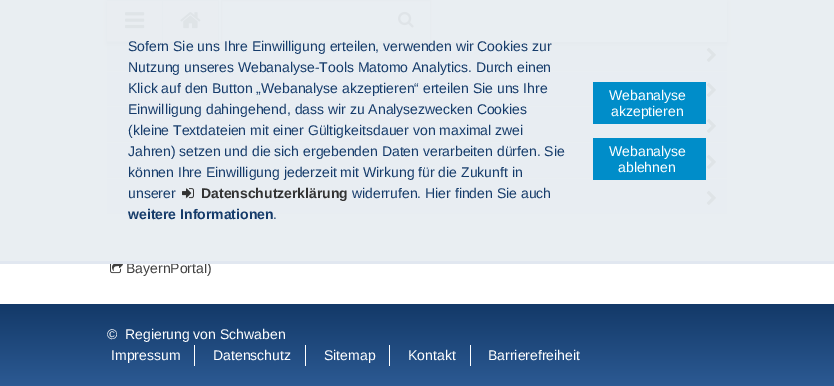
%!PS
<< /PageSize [834 386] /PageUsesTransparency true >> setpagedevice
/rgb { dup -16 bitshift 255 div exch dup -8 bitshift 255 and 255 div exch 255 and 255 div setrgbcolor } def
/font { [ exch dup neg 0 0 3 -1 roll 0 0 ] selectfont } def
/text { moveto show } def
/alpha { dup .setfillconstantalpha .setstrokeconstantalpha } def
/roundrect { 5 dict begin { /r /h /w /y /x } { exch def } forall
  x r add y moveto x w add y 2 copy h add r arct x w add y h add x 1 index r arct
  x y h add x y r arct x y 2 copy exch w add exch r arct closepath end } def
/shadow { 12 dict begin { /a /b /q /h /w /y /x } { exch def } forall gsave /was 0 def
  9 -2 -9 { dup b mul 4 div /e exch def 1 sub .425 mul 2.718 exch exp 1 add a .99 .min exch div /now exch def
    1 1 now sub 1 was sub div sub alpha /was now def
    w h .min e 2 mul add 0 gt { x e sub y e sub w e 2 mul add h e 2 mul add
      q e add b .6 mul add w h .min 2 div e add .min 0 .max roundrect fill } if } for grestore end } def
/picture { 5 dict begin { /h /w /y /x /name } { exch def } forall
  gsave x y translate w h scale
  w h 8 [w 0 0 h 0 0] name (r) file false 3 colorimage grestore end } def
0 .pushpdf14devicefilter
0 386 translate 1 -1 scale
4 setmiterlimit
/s1 { /LiberationSans-Regular 14 font 16#3F3F3F rgb } def
/s2 { /LiberationSans-Regular 14 font 16#153B6A rgb } def
/s3 { /LiberationSans-Bold 14 font 16#333333 rgb } def
/s4 { /LiberationSans-Bold 14 font 16#153B6A rgb } def
/s5 { /LiberationSans-Regular 14 font 16#FFFFFF rgb } def
16#FFFFFF rgb
0 0 834 386 rectfill
16#EEF3FB rgb
107 42 620 28 rectfill
(pic5.raw) 706 47 10 15 picture
16#000000 rgb
107 2 620 42 0 2.5 0.3 shadow
16#FFFFFF rgb
219 0 508 42 rectfill
16#F3F3F3 rgb
107 1 55 40 rectfill
16#D7D7D7 rgb
107 0 112 1 rectfill
162 0 1 42 rectfill
107 41 56 1 rectfill
(pic2.raw) 125 12 20 17 picture
16#F3F3F3 rgb
163 1 55 40 rectfill
16#D7D7D7 rgb
218 0 1 42 rectfill
163 41 56 1 rectfill
(pic3.raw) 180 12 21 17 picture
221.5 0.5 209 41 rectstroke
(pic4.raw) 398 11 16 17 picture
16#E1E7F0 rgb
107 70 620 1 rectfill
16#EEF3FB rgb
107 72 620 33 rectfill
16#E1E7F0 rgb
107 105 620 1 rectfill
(pic5.raw) 706 82 10 15 picture
16#EEF3FB rgb
107 107 620 34 rectfill
16#E1E7F0 rgb
107 141 620 1 rectfill
(pic5.raw) 706 118 10 15 picture
16#EEF3FB rgb
107 143 620 34 rectfill
16#E1E7F0 rgb
107 177 620 1 rectfill
(pic5.raw) 706 154 10 15 picture
16#EEF3FB rgb
107 179 620 34 rectfill
16#E1E7F0 rgb
107 213 620 1 rectfill
(pic5.raw) 706 190 10 15 picture
0.95 alpha
16#E8EDF1 rgb
0 0 834 261 rectfill
1 alpha
s1
(BayernPortal\)) 126 273 text
16#E1E7F0 rgb
0 261 834 3 rectfill
s2
(Sofern Sie uns Ihre Einwilligung erteilen, verwenden wir Cookies zur) 128 51 text
(Nutzung unseres Webanalyse-Tools Matomo Analytics. Durch einen) 128 72 text
(Klick auf den Button „Webanalyse akzeptieren“ erteilen Sie uns Ihre) 128 93 text
(Einwilligung dahingehend, dass wir zu Analysezwecken Cookies) 128 114 text
(\(kleine Textdateien mit einer Gültigkeitsdauer von maximal zwei) 128 135 text
(Jahren\) setzen und die sich ergebenden Daten verarbeiten dürfen. Sie) 128 156 text
(können Ihre Einwilligung jederzeit mit Wirkung für die Zukunft in) 128 177 text
(unserer) 128 198 text
(pic1.raw) 182 188 12 11 picture
s3
(Datenschutzerklärung) 201 198 text
s2
(widerrufen. Hier finden Sie auch) 352 198 text
s4
(weitere Informationen) 128 219 text
s2
(.) 273 219 text
16#008DC9 rgb
593 82 113 42 rectfill
s5
(Webanalyse) 609 100 text
(akzeptieren) 611 116 text
16#008DC9 rgb
593 138 113 42 rectfill
s5
(Webanalyse) 609 156 text
(ablehnen) 618 172 text
(pic6.raw) 110 264 13 10 picture
gsave 0 304 moveto 834 304 lineto 834 386 lineto 0 386 lineto closepath clip newpath
<< /ShadingType 2 /ColorSpace /DeviceRGB /Coords [417 304 417 386] /Extend [true true] /Function << /FunctionType 2 /Domain [0 1] /C0 [0.075 0.224 0.408] /C1 [0.173 0.353 0.576] /N 1 >> >> shfill grestore
(©) 107 339 text
(Regierung von Schwaben) 125 339 text
194 345 1 21 rectfill
(Impressum) 111 360 text
305 345 1 21 rectfill
(Datenschutz) 213 360 text
389 345 1 21 rectfill
(Sitemap) 324 360 text
470 345 1 21 rectfill
(Kontakt) 408 360 text
(Barrierefreiheit) 488 360 text
.poppdf14devicefilter showpage
